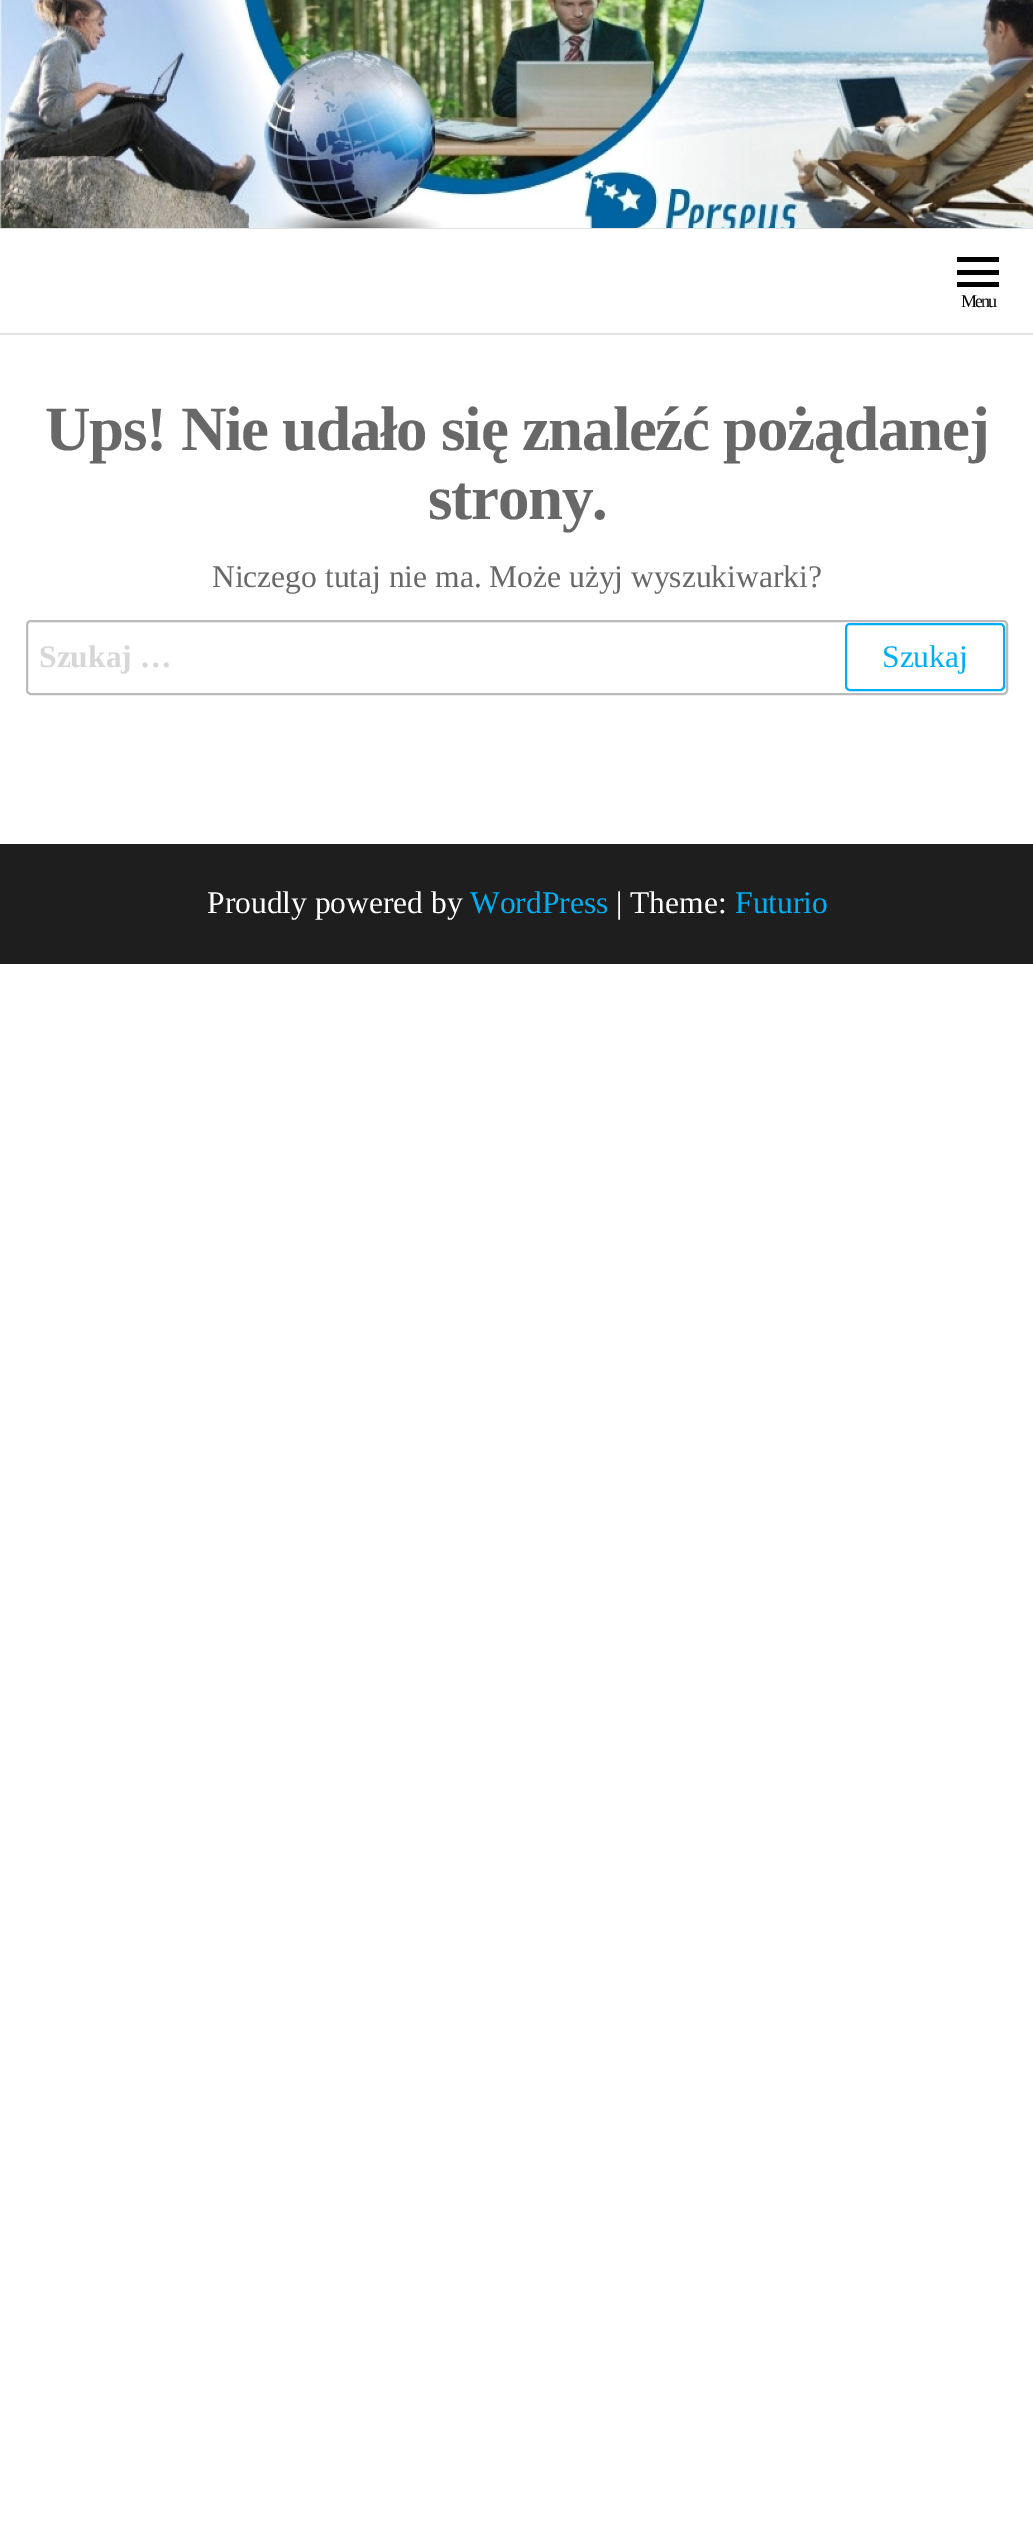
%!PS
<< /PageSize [1033 2546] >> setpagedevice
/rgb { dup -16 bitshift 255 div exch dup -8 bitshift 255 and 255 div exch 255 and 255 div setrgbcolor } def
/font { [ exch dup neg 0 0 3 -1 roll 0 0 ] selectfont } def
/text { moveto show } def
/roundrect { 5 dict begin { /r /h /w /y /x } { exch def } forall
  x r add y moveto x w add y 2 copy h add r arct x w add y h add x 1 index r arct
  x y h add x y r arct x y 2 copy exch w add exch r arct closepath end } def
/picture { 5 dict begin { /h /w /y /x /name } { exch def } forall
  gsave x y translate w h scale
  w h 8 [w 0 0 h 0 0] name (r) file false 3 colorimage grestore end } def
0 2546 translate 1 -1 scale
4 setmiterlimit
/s1 { /LiberationSerif-Regular 31.5 font 16#686868 rgb } def
/s2 { /LiberationSerif-Bold 31.5 font 16#D7D7D7 rgb } def
/s3 { /LiberationSerif-Regular 31.5 font 16#00AFF2 rgb } def
/s4 { /LiberationSerif-Regular 31.5 font 16#FFFFFF rgb } def
16#FFFFFF rgb
0 0 1033 2546 rectfill
(pic1.raw) 0 0 1033 228 picture
16#E2E2E2 rgb
0 228 1033 1 rectfill
0 333 1033 2 rectfill
16#000000 rgb
957 257 42 5 rectfill
957 270 42 5 rectfill
957 282 42 5 rectfill
/LiberationSerif-Regular 18 font
961 307 moveto -2 0 (Menu) ashow
/LiberationSerif-Bold 63 font
16#686868 rgb
45 450 moveto -1.25 0 (Ups! Nie udało się znaleźć pożądanej) ashow
428 519 moveto -1.25 0 (strony.) ashow
s1
(Niczego tutaj nie ma. Może użyj wyszukiwarki?) 212 587 text
16#BBBBBB rgb
2 setlinewidth
27 621 980 73 4 roundrect stroke
s2
(Szukaj …) 39 667 text
16#00AFF2 rgb
846 624 158 66 4 roundrect stroke
s3
(Szukaj) 882 667 text
16#1E1E1E rgb
0 844 1033 120 rectfill
s4
(Proudly powered by) 207 913 text
s3
(WordPress) 470 913 text
s4
(| Theme:) 616 913 text
s3
(Futurio) 735 913 text
showpage
